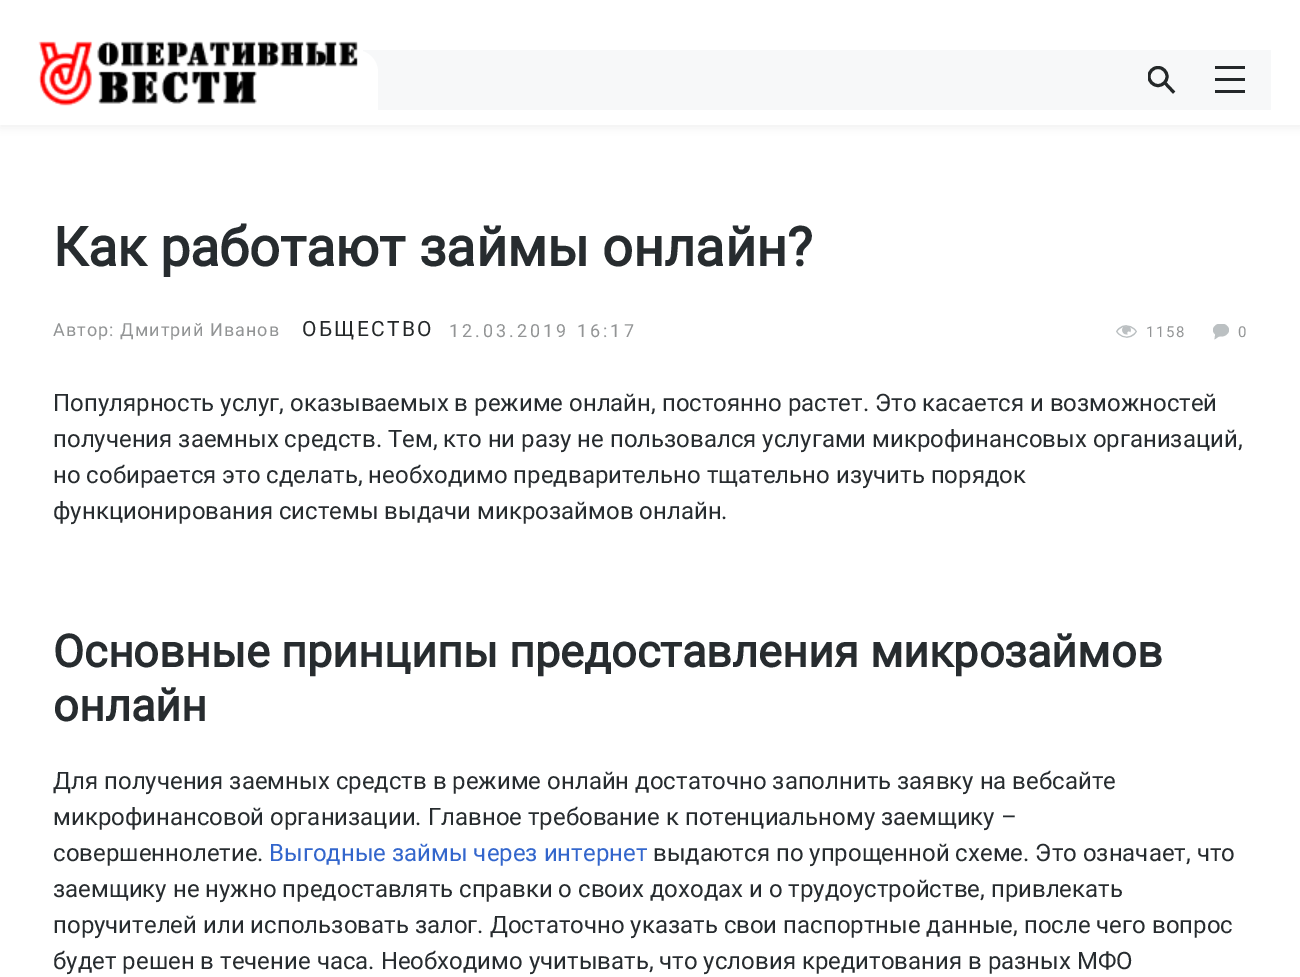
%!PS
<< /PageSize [1300 977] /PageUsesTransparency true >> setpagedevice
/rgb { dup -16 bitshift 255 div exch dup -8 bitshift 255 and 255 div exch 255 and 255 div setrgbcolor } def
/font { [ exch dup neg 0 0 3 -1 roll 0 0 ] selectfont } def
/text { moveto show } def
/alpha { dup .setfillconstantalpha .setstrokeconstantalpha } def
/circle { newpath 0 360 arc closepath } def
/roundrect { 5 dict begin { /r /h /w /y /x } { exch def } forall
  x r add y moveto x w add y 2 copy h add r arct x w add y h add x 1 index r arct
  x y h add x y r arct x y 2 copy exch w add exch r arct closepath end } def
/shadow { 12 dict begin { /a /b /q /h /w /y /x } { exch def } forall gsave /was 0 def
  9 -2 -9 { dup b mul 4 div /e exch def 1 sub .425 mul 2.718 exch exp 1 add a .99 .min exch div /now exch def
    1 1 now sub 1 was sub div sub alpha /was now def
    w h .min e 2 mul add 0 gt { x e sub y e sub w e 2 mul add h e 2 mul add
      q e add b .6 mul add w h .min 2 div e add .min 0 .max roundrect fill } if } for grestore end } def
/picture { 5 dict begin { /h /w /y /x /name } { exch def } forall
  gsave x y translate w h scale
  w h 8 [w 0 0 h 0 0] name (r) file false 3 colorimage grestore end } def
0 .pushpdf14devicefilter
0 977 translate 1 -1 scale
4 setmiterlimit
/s1 { /Roboto-Bold 54 font 16#272C2F rgb } def
/s2 { /Roboto-Regular 24 font 16#272C2F rgb } def
/s3 { /Roboto-Bold 45 font 16#272C2F rgb } def
/s4 { /Roboto-Regular 24 font 16#3366CC rgb } def
16#FFFFFF rgb
0 0 1300 977 rectfill
16#000000 rgb
0 3 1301 125 0 4.5 0.06 shadow
16#FFFFFF rgb
0 0 1300 125 rectfill
16#F7F8F9 rgb
363 50 15 22 rectfill
16#FFFFFF rgb
356 50 moveto 368 50 378 60 378 72 curveto 378 110 lineto 356 110 lineto closepath fill
(pic1.raw) 38 41 320 65 picture
16#F7F8F9 rgb
378 50 893 60 rectfill
gsave
1148 66 28 29 rectclip
16#242829 rgb
3 setlinewidth
1158 76.5 9 circle stroke
grestore
16#242829 rgb
3 setlinewidth
2 setlinecap
1165 83 moveto 1173 91.5 lineto stroke
16#24282A rgb
1215 90 30 3 rectfill
1215 78 30 3 rectfill
1215 66 30 3 rectfill
s1
(Как работают займы онлайн?) 53 266 text
/Roboto-Regular 18 font
16#929495 rgb
53 336 moveto 1.05 0 (Автор: Дмитрий Иванов) ashow
/Roboto-Regular 21 font
16#242829 rgb
302 336 moveto 2.25 0 (ОБЩЕСТВО) ashow
/Roboto-Regular 18 font
16#929495 rgb
449 337 moveto 3 0 (12.03.2019 16:17) ashow
(pic2.raw) 1116 325 21 13 picture
/Roboto-Regular 15 font
1146 337 moveto 1.5 0 (1158) ashow
gsave
1212 324 18 17 rectclip
16#BBC0C2 rgb
1221 323.5 moveto 1225.5 323.5 1229 326.5 1229 330 curveto 1229 333.5 1225.5 336.5 1221 336.5 curveto 1216.5 336.5 1213 333.5 1213 330 curveto 1213 326.5 1216.5 323.5 1221 323.5 curveto closepath fill
grestore
16#BBC0C2 rgb
1215.5 332.5 moveto 1214.5 339.5 lineto 1221 335 lineto eofill
16#929495 rgb
1238 337 moveto 1.5 0 (0) ashow
s2
(Популярность услуг, оказываемых в режиме онлайн, постоянно растет. Это касается и возможностей) 53 411 text
(получения заемных средств. Тем, кто ни разу не пользовался услугами микрофинансовых организаций,) 53 447 text
(но собирается это сделать, необходимо предварительно тщательно изучить порядок) 53 483 text
(функционирования системы выдачи микрозаймов онлайн.) 53 519 text
s3
(Основные принципы предоставления микрозаймов) 53 667 text
(онлайн) 53 721 text
s2
(Для получения заемных средств в режиме онлайн достаточно заполнить заявку на вебсайте) 53 789 text
(микрофинансовой организации. Главное требование к потенциальному заемщику –) 53 825 text
(совершеннолетие.) 53 861 text
s4
(Выгодные займы через интернет) 269 861 text
s2
(выдаются по упрощенной схеме. Это означает, что) 653 861 text
(заемщику не нужно предоставлять справки о своих доходах и о трудоустройстве, привлекать) 53 897 text
(поручителей или использовать залог. Достаточно указать свои паспортные данные, после чего вопрос) 53 933 text
(будет решен в течение часа. Необходимо учитывать, что условия кредитования в разных МФО) 53 969 text
.poppdf14devicefilter showpage
